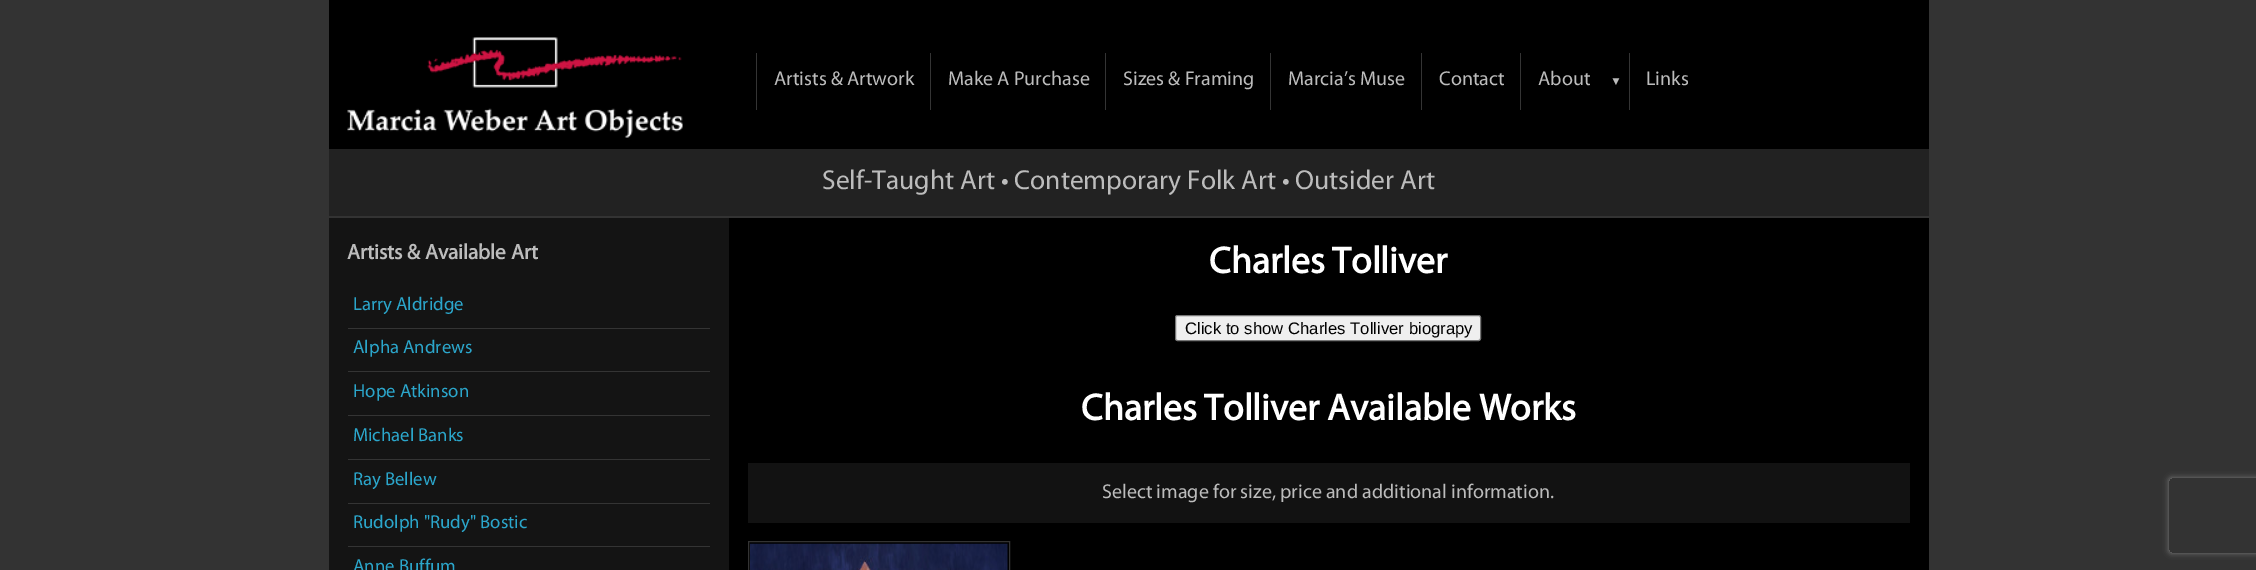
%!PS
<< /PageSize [2256 570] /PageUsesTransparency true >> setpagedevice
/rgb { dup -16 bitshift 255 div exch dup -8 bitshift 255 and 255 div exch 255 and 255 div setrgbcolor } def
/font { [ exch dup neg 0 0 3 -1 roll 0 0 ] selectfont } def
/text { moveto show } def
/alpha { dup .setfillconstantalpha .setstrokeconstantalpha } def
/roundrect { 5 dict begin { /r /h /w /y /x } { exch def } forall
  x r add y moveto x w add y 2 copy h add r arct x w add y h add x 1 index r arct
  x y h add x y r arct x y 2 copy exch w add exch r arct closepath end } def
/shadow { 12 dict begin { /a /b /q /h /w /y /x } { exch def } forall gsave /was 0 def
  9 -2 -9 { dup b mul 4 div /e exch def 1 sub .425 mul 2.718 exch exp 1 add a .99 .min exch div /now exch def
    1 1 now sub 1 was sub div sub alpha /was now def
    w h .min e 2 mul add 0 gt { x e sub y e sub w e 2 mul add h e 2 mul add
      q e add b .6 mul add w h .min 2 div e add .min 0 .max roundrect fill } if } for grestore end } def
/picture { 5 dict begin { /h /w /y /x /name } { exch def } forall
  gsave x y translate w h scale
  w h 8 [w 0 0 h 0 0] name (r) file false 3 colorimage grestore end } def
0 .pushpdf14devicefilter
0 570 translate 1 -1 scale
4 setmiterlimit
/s1 { /Myriad-Regular 20 font 16#BCBCBC rgb } def
/s2 { /LiberationSans-Italic 12 font 16#BCBCBC rgb } def
/s3 { /Myriad-Regular 27.5 font 16#BCBCBC rgb } def
/s4 { /Myriad-Bold 21.25 font 16#BCBCBC rgb } def
/s5 { /Myriad-Regular 18.75 font 16#2BA6CB rgb } def
/s6 { /Myriad-Bold 37.5 font 16#FFFFFF rgb } def
/s7 { /LiberationSans-Regular 16.7 font 16#000000 rgb } def
16#333333 rgb
0 0 2256 570 rectfill
16#000000 rgb
329 0 1600 149 rectfill
(pic1.raw) 347 37 336 101 picture
16#343434 rgb
756 53 1 57 rectfill
s1
(Artists & Artwork) 774 85 text
16#343434 rgb
930 53 1 57 rectfill
s1
(Make A Purchase) 948 85 text
16#343434 rgb
1105 53 1 57 rectfill
s1
(Sizes & Framing) 1123 85 text
16#343434 rgb
1270 53 1 57 rectfill
s1
(Marcia’s Muse) 1288 85 text
16#343434 rgb
1421 53 1 57 rectfill
s1
(Contact) 1439 85 text
16#343434 rgb
1520 53 1 57 rectfill
s1
(About) 1538 85 text
s2
(▼) 1610 85 text
16#343434 rgb
1629 53 1 57 rectfill
s1
(Links) 1646 85 text
16#222222 rgb
329 149 1600 67 rectfill
s3
(Self-Taught Art • Contemporary Folk Art • Outsider Art) 822 189 text
16#000000 rgb
729 218 1200 352 rectfill
16#141414 rgb
329 218 400 352 rectfill
s4
(Artists & Available Art) 347 259 text
16#343434 rgb
348 328 362 1 rectfill
s5
(Larry Aldridge) 353 310 text
16#343434 rgb
348 371 362 1 rectfill
s5
(Alpha Andrews) 353 353 text
16#343434 rgb
348 415 362 1 rectfill
s5
(Hope Atkinson) 353 397 text
16#343434 rgb
348 459 362 1 rectfill
s5
(Michael Banks) 353 441 text
16#343434 rgb
348 503 362 1 rectfill
s5
(Ray Bellew) 353 485 text
16#343434 rgb
348 546 362 1 rectfill
s5
(Rudolph "Rudy" Bostic) 353 528 text
(Anne Buffum) 353 572 text
s6
(Charles Tolliver) 1209 273 text
16#EFEFEF rgb
1175.5 315.5 305 25 2 roundrect gsave fill grestore
16#767676 rgb
stroke
s7
(Click to show Charles Tolliver biograpy) 1185 334 text
s6
(Charles Tolliver Available Works) 1081 420 text
16#121212 rgb
748 463 1162 60 rectfill
s1
(Select image for size, price and additional information.) 1102 498 text
16#333333 rgb
748.5 541.5 261 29 rectstroke
(pic2.raw) 750 543 258 27 picture
gsave
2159 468 moveto 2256 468 lineto 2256 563 lineto 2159 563 lineto closepath 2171.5 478 moveto 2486.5 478 lineto 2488 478 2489 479 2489 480.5 curveto 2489 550.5 lineto 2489 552 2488 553 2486.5 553 curveto 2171.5 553 lineto 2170 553 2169 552 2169 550.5 curveto 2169 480.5 lineto 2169 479 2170 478 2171.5 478 curveto closepath eoclip newpath
16#808080 rgb
2169 478 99 75 2.5 3 1 shadow
grestore
.poppdf14devicefilter showpage
